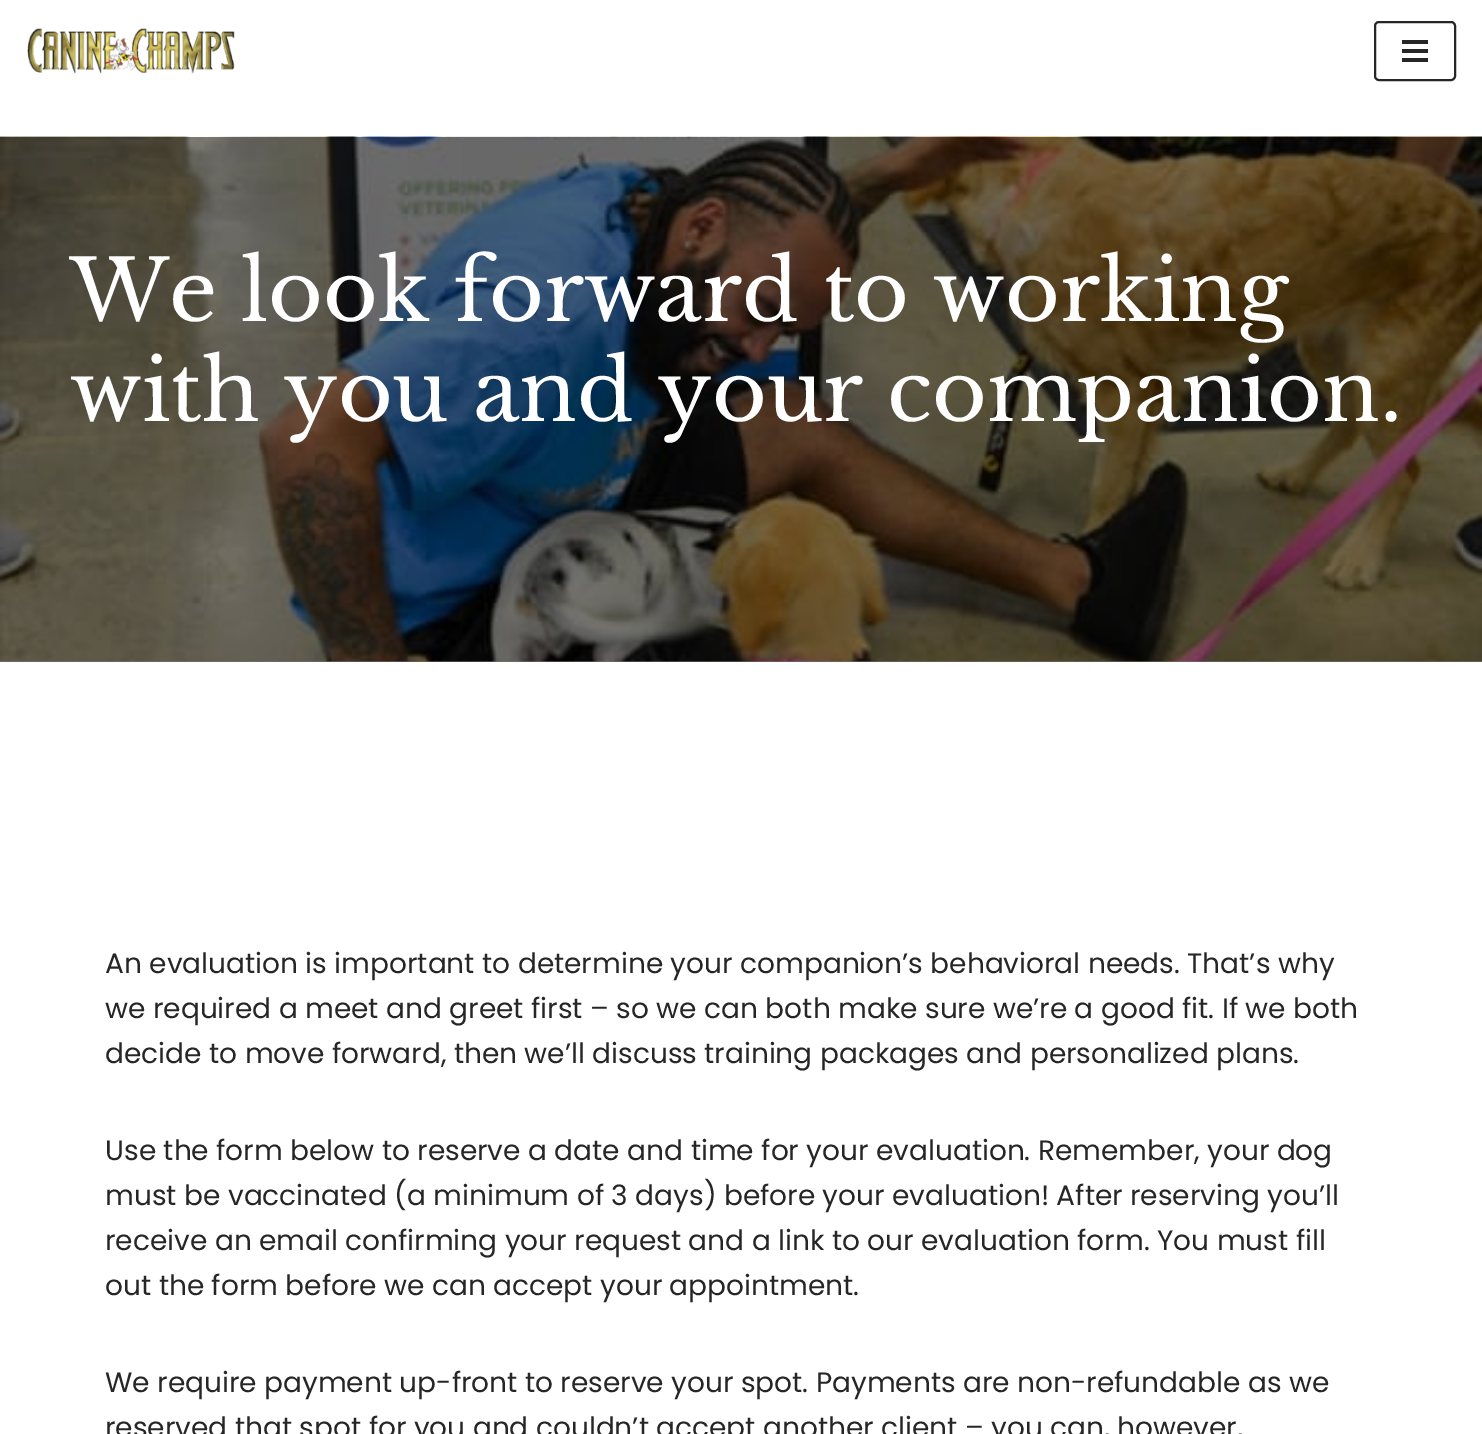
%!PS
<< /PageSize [1482 1434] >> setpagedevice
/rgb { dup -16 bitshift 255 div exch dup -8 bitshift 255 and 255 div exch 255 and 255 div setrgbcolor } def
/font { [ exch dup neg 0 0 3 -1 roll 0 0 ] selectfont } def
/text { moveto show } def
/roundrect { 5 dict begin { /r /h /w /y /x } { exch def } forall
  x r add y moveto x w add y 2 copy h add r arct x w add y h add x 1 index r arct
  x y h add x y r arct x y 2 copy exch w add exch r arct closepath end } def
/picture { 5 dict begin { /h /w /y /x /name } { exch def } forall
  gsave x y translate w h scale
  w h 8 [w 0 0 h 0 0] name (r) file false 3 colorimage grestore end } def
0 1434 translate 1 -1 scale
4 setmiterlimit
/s1 { /LibreBaskerville-Regular 84 font 16#FFFFFF rgb } def
/s2 { /Poppins-Regular 28 font 16#272626 rgb } def
16#FFFFFF rgb
0 0 1482 1434 rectfill
16#7A7A7A rgb
0 661 1482 1 rectfill
(pic1.raw) 27 28 208 46 picture
16#272626 rgb
2 setlinewidth
1375 22 80 58 4 roundrect stroke
1402 40 26 4 rectfill
1402 49 26 4 rectfill
1402 58 26 4 rectfill
(pic2.raw) 0 136 1482 526 picture
s1
(We look forward to working) 70 321 text
(with you and your companion.) 70 421 text
s2
(An evaluation is important to determine your companion’s behavioral needs. That’s why) 105 973 text
(we required a meet and greet first – so we can both make sure we’re a good fit. If we both) 105 1018 text
(decide to move forward, then we’ll discuss training packages and personalized plans.) 105 1063 text
(Use the form below to reserve a date and time for your evaluation. Remember, your dog) 105 1160 text
(must be vaccinated \(a minimum of 3 days\) before your evaluation! After reserving you’ll) 105 1205 text
(receive an email confirming your request and a link to our evaluation form. You must fill) 105 1250 text
(out the form before we can accept your appointment.) 105 1295 text
(We require payment up-front to reserve your spot. Payments are non-refundable as we) 105 1392 text
(reserved that spot for you and couldn’t accept another client – you can, however,) 105 1437 text
showpage
